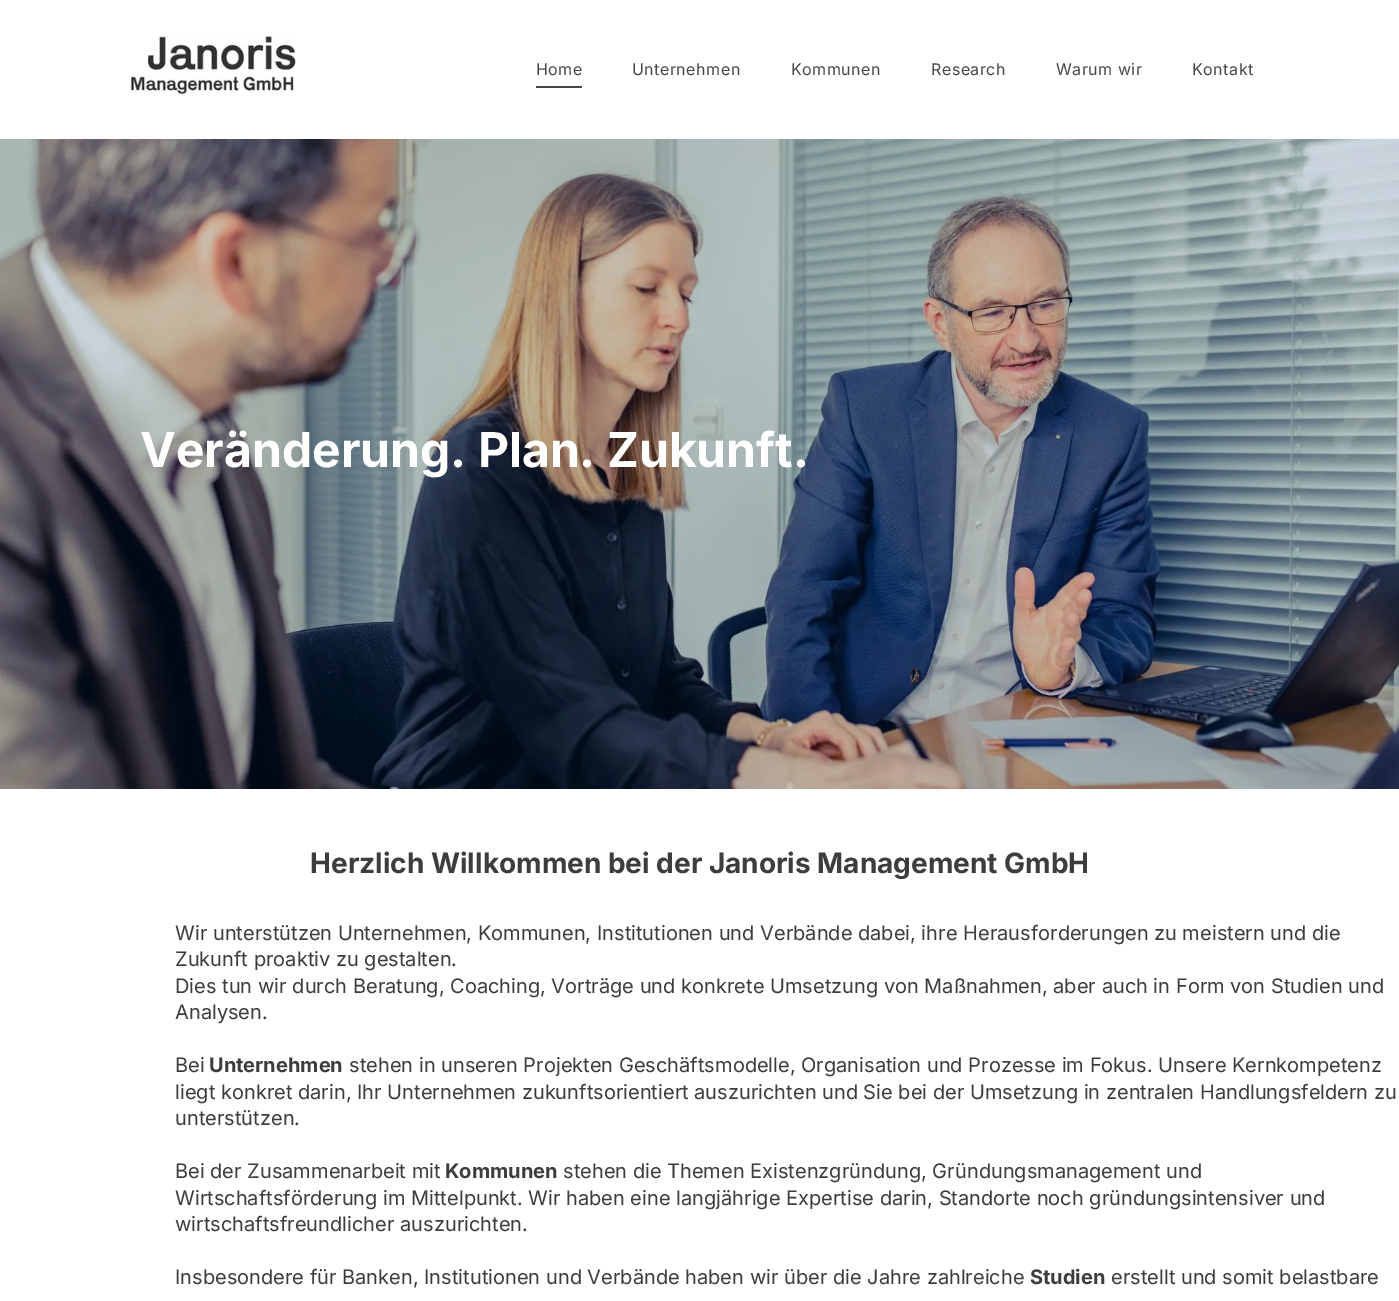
%!PS
<< /PageSize [1399 1301] >> setpagedevice
/rgb { dup -16 bitshift 255 div exch dup -8 bitshift 255 and 255 div exch 255 and 255 div setrgbcolor } def
/font { [ exch dup neg 0 0 3 -1 roll 0 0 ] selectfont } def
/text { moveto show } def
/picture { 5 dict begin { /h /w /y /x /name } { exch def } forall
  gsave x y translate w h scale
  w h 8 [w 0 0 h 0 0] name (r) file false 3 colorimage grestore end } def
0 1301 translate 1 -1 scale
4 setmiterlimit
/s1 { /Inter-Bold 48 font 16#FFFFFF rgb } def
/s2 { /Inter-Bold 28 font 16#3D3D3D rgb } def
/s3 { /Inter-Regular 20 font 16#3D3D3D rgb } def
/s4 { /Inter-Bold 20 font 16#3D3D3D rgb } def
16#FFFFFF rgb
0 0 1399 1301 rectfill
(pic1.raw) 129 35 167 60 picture
/Inter-Regular 16 font
16#474747 rgb
536 75 moveto 0.5 0 (Home) ashow
536 86 46 2 rectfill
632 75 moveto 0.5 0 (Unternehmen) ashow
791 75 moveto 0.5 0 (Kommunen) ashow
931 75 moveto 0.5 0 (Research) ashow
1056 75 moveto 0.5 0 (Warum wir) ashow
1192 75 moveto 0.5 0 (Kontakt) ashow
(pic2.raw) 0 139 1399 650 picture
s1
(Veränderung. Plan. Zukunft.) 140 467 text
s2
(Herzlich Willkommen bei der Janoris Management GmbH) 310 873 text
s3
(Wir unterstützen Unternehmen, Kommunen, Institutionen und Verbände dabei, ihre Herausforderungen zu meistern und die) 175 940 text
(Zukunft proaktiv zu gestalten.) 175 966 text
(Dies tun wir durch Beratung, Coaching, Vorträge und konkrete Umsetzung von Maßnahmen, aber auch in Form von Studien und) 175 993 text
(Analysen.) 175 1019 text
(Bei) 175 1072 text
s4
(Unternehmen) 209 1072 text
s3
(stehen in unseren Projekten Geschäftsmodelle, Organisation und Prozesse im Fokus. Unsere Kernkompetenz) 349 1072 text
(liegt konkret darin, Ihr Unternehmen zukunftsorientiert auszurichten und Sie bei der Umsetzung in zentralen Handlungsfeldern zu) 175 1099 text
(unterstützen.) 175 1125 text
(Bei der Zusammenarbeit mit) 175 1178 text
s4
(Kommunen) 445 1178 text
s3
(stehen die Themen Existenzgründung, Gründungsmanagement und) 563 1178 text
(Wirtschaftsförderung im Mittelpunkt. Wir haben eine langjährige Expertise darin, Standorte noch gründungsintensiver und) 175 1205 text
(wirtschaftsfreundlicher auszurichten.) 175 1231 text
(Insbesondere für Banken, Institutionen und Verbände haben wir über die Jahre zahlreiche) 175 1284 text
s4
(Studien) 1030 1284 text
s3
(erstellt und somit belastbare) 1111 1284 text
showpage
